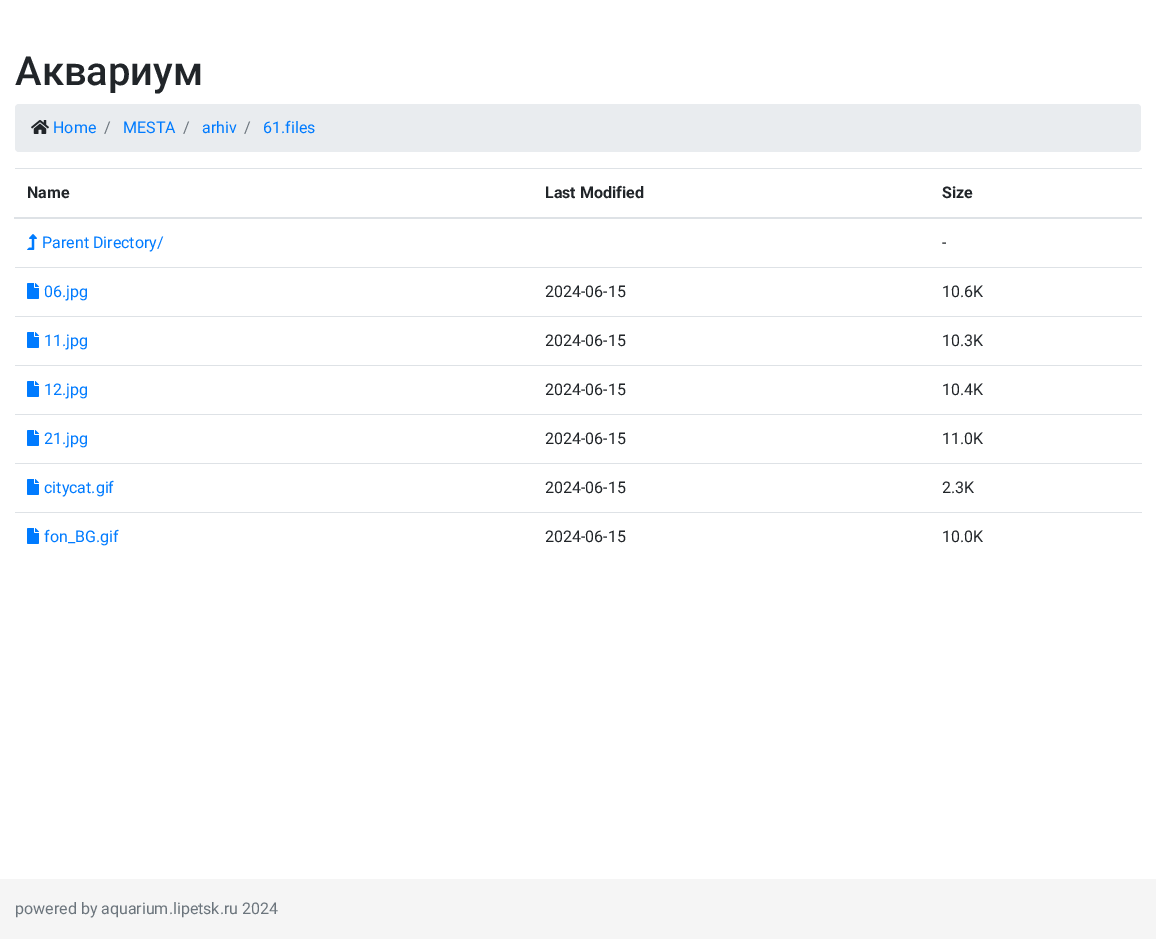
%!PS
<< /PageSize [1156 939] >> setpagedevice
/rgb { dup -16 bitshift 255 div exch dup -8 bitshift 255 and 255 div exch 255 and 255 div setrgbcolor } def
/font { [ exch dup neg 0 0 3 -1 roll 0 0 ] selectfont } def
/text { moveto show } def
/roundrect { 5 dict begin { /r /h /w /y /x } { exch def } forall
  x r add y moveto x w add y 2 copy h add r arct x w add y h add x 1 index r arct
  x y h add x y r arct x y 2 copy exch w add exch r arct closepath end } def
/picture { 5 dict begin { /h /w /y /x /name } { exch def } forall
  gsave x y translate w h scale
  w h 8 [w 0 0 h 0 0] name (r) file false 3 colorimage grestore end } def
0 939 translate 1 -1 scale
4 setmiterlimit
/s1 { /Roboto-Medium 40 font 16#212529 rgb } def
/s2 { /Roboto-Regular 16 font 16#007BFF rgb } def
/s3 { /Roboto-Regular 16 font 16#6C757D rgb } def
/s4 { /Roboto-Bold 16 font 16#212529 rgb } def
/s5 { /Roboto-Regular 16 font 16#212529 rgb } def
16#FFFFFF rgb
0 0 1156 939 rectfill
s1
(Аквариум) 15 85 text
16#E9ECEF rgb
15 104 1126 48 4 roundrect fill
(pic1.raw) 31 120 18 14 picture
s2
(Home) 53 133 text
s3
(/) 104 133 text
s2
(MESTA) 123 133 text
s3
(/) 183 133 text
s2
(arhiv) 202 133 text
s3
(/) 244 133 text
s2
(61.files) 263 133 text
s4
(Name) 27 198 text
(Last Modified) 545 198 text
16#DEE2E6 rgb
15 168 1127 1 rectfill
14 217 1128 2 rectfill
s4
(Size) 942 198 text
(pic2.raw) 27 234 10 16 picture
s2
(Parent Directory/) 42 248 text
s5
(-) 942 248 text
(pic3.raw) 27 283 12 16 picture
s2
(06.jpg) 44 297 text
s5
(2024-06-15) 545 297 text
16#DEE2E6 rgb
15 267 1127 1 rectfill
s5
(10.6K) 942 297 text
(pic3.raw) 27 332 12 16 picture
s2
(11.jpg) 44 346 text
s5
(2024-06-15) 545 346 text
16#DEE2E6 rgb
15 316 1127 1 rectfill
s5
(10.3K) 942 346 text
(pic3.raw) 27 381 12 16 picture
s2
(12.jpg) 44 395 text
s5
(2024-06-15) 545 395 text
16#DEE2E6 rgb
15 365 1127 1 rectfill
s5
(10.4K) 942 395 text
(pic3.raw) 27 430 12 16 picture
s2
(21.jpg) 44 444 text
s5
(2024-06-15) 545 444 text
16#DEE2E6 rgb
15 414 1127 1 rectfill
s5
(11.0K) 942 444 text
(pic3.raw) 27 479 12 16 picture
s2
(citycat.gif) 44 493 text
s5
(2024-06-15) 545 493 text
16#DEE2E6 rgb
15 463 1127 1 rectfill
s5
(2.3K) 942 493 text
(pic3.raw) 27 528 12 16 picture
s2
(fon_BG.gif) 44 542 text
s5
(2024-06-15) 545 542 text
16#DEE2E6 rgb
15 512 1127 1 rectfill
s5
(10.0K) 942 542 text
16#F5F5F5 rgb
0 879 1156 60 rectfill
s3
(powered by aquarium.lipetsk.ru 2024) 15 914 text
showpage
